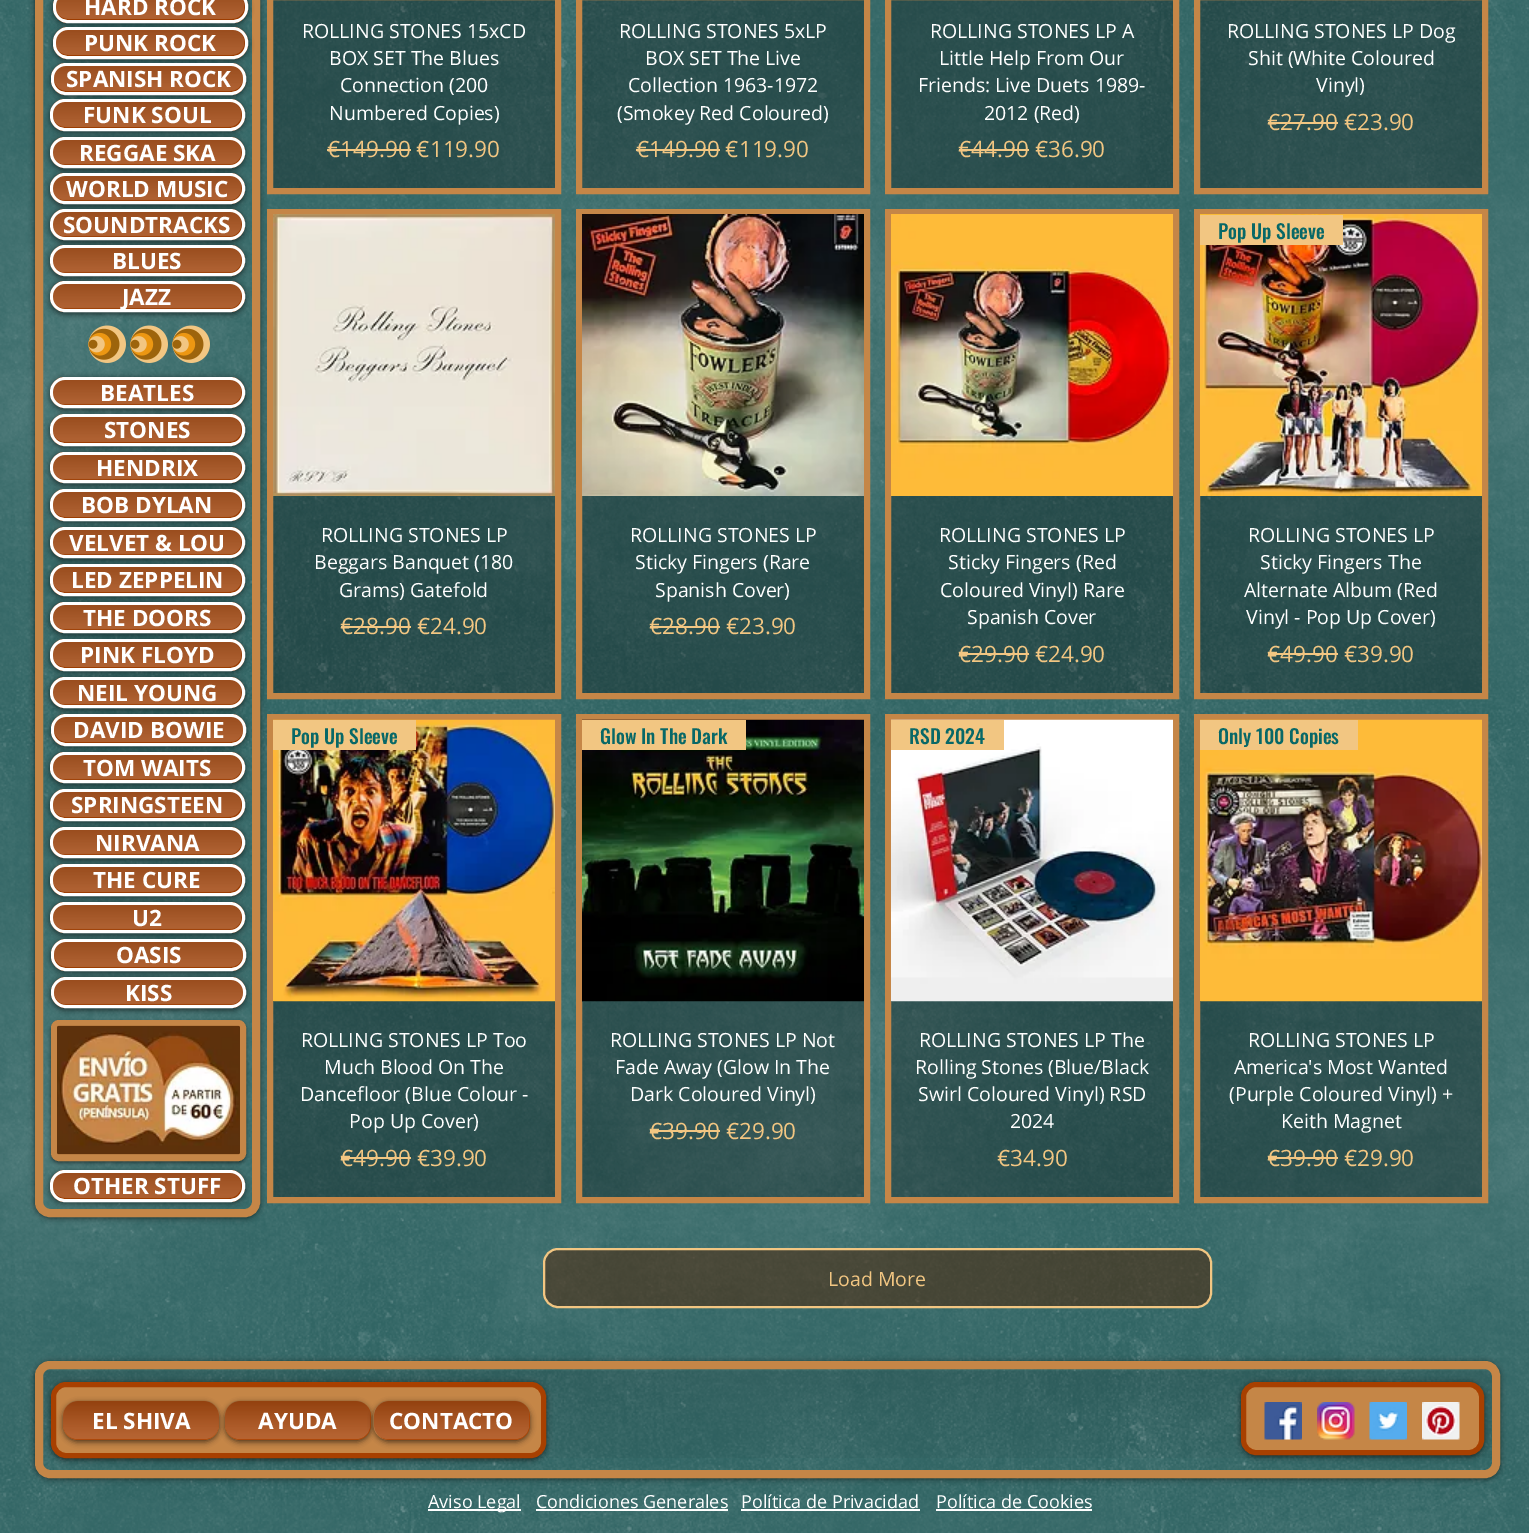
%!PS
<< /PageSize [1529 1533] /PageUsesTransparency true >> setpagedevice
/rgb { dup -16 bitshift 255 div exch dup -8 bitshift 255 and 255 div exch 255 and 255 div setrgbcolor } def
/font { [ exch dup neg 0 0 3 -1 roll 0 0 ] selectfont } def
/text { moveto show } def
/alpha { dup .setfillconstantalpha .setstrokeconstantalpha } def
/roundrect { 5 dict begin { /r /h /w /y /x } { exch def } forall
  x r add y moveto x w add y 2 copy h add r arct x w add y h add x 1 index r arct
  x y h add x y r arct x y 2 copy exch w add exch r arct closepath end } def
/shadow { 12 dict begin { /a /b /q /h /w /y /x } { exch def } forall gsave /was 0 def
  9 -2 -9 { dup b mul 4 div /e exch def 1 sub .425 mul 2.718 exch exp 1 add a .99 .min exch div /now exch def
    1 1 now sub 1 was sub div sub alpha /was now def
    w h .min e 2 mul add 0 gt { x e sub y e sub w e 2 mul add h e 2 mul add
      q e add b .6 mul add w h .min 2 div e add .min 0 .max roundrect fill } if } for grestore end } def
/picture { 5 dict begin { /h /w /y /x /name } { exch def } forall
  gsave x y translate w h scale
  w h 8 [w 0 0 h 0 0] name (r) file false 3 colorimage grestore end } def
0 .pushpdf14devicefilter
0 1533 translate 1 -1 scale
4 setmiterlimit
/s1 { /OpenSans-Bold 22.5 font 16#FFFFFF rgb } def
/s2 { /OpenSans-Regular 19.5 font 16#FFFFFF rgb } def
/s3 { /OpenSans-Regular 22.5 font 16#F2C682 rgb } def
/s4 { /Oswald-Medium 19.5 font 16#086867 rgb } def
/s5 { /OpenSans-Regular 19.5 font 16#F2C682 rgb } def
/s6 { /OpenSans-Regular 18 font 16#FFFFFF rgb } def
16#306463 rgb
0 0 1529 1533 rectfill
(pic1.raw) 0 0 1529 1533 picture
0.27 alpha
16#000000 rgb
270 -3 moveto 558 -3 lineto 558 191 lineto 270 191 lineto closepath fill
1 alpha
16#C58647 rgb
6 setlinewidth
270 -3 moveto 558 -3 lineto 558 191 lineto 270 191 lineto closepath stroke
0.27 alpha
16#000000 rgb
273 496 282 197 rectfill
1 alpha
16#C58647 rgb
270 212 288 484 rectstroke
0.27 alpha
16#000000 rgb
273 1001 282 196 rectfill
1 alpha
16#C58647 rgb
270 717 288 483 rectstroke
gsave
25 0 moveto 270 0 lineto 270 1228 lineto 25 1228 lineto closepath 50 -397 moveto 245 -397 lineto 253.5 -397 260 -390.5 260 -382 curveto 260 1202 lineto 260 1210.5 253.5 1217 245 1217 curveto 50 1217 lineto 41.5 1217 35 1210.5 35 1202 curveto 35 -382 lineto 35 -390.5 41.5 -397 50 -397 curveto closepath eoclip newpath
16#000000 rgb
35 -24 225 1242 15 3 0.6 shadow
grestore
8 setlinewidth
39 -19 217 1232 11 roundrect stroke
16#000000 rgb
53 -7 195 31 15 3 0.6 shadow
16#A84000 rgb
53 -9 195 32 15 roundrect fill
(pic2.raw) 53 0 195 20 picture
16#FFFFFF rgb
3 setlinewidth
54.5 -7.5 192 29 13.5 roundrect stroke
(pic3.raw) 56 0 189 19 picture
s1
(HARD ROCK) 84 15 text
16#000000 rgb
53 29 195 31 15 3 0.6 shadow
16#A84000 rgb
53 27 195 32 15 roundrect fill
(pic4.raw) 53 29 195 27 picture
16#FFFFFF rgb
54.5 28.5 192 29 13.5 roundrect stroke
(pic5.raw) 56 30 189 25 picture
(PUNK ROCK) 84 51 text
16#000000 rgb
51 65 195 31 15 3 0.6 shadow
16#A84000 rgb
51 63 195 32 15 roundrect fill
(pic6.raw) 51 65 195 27 picture
16#FFFFFF rgb
52.5 64.5 192 29 13.5 roundrect stroke
(pic7.raw) 54 66 189 25 picture
(SPANISH ROCK) 66 87 text
16#000000 rgb
50 101 195 31 15 3 0.6 shadow
16#A84000 rgb
50 99 195 32 15 roundrect fill
(pic8.raw) 50 101 195 27 picture
16#FFFFFF rgb
51.5 100.5 192 29 13.5 roundrect stroke
(pic9.raw) 53 102 189 25 picture
(FUNK SOUL) 83 123 text
16#000000 rgb
50 138 195 32 15 3 0.6 shadow
16#A84000 rgb
50 137 195 31 15 roundrect fill
(pic10.raw) 50 139 195 28 picture
16#FFFFFF rgb
51.5 138.5 192 28 13.5 roundrect stroke
(pic11.raw) 53 140 189 25 picture
(REGGAE SKA) 79 161 text
16#000000 rgb
50 174 195 32 15 3 0.6 shadow
16#A84000 rgb
50 173 195 31 15 roundrect fill
(pic12.raw) 50 175 195 28 picture
16#FFFFFF rgb
51.5 174.5 192 28 13.5 roundrect stroke
(pic13.raw) 53 176 189 25 picture
(WORLD MUSIC) 66 197 text
16#000000 rgb
50 210 195 32 15 3 0.6 shadow
16#A84000 rgb
50 209 195 31 15 roundrect fill
(pic14.raw) 50 211 195 28 picture
16#FFFFFF rgb
51.5 210.5 192 28 13.5 roundrect stroke
(pic15.raw) 53 212 189 25 picture
(SOUNDTRACKS) 63 233 text
16#000000 rgb
50 246 195 32 15 3 0.6 shadow
16#A84000 rgb
50 245 195 31 15 roundrect fill
(pic16.raw) 50 247 195 28 picture
16#FFFFFF rgb
51.5 246.5 192 28 13.5 roundrect stroke
(pic17.raw) 53 248 189 25 picture
(BLUES) 112 269 text
16#000000 rgb
50 282 195 32 15 3 0.6 shadow
16#A84000 rgb
50 281 195 31 15 roundrect fill
(pic18.raw) 50 283 195 28 picture
16#FFFFFF rgb
51.5 282.5 192 28 13.5 roundrect stroke
(pic19.raw) 53 284 189 25 picture
(JAZZ) 122 305 text
(pic20.raw) 88 325 38 38 picture
(pic21.raw) 130 325 38 38 picture
(pic22.raw) 172 325 38 38 picture
16#000000 rgb
50 378 195 32 15 3 0.6 shadow
16#A84000 rgb
50 377 195 31 15 roundrect fill
(pic23.raw) 50 379 195 28 picture
16#FFFFFF rgb
51.5 378.5 192 28 13.5 roundrect stroke
(pic24.raw) 53 380 189 25 picture
(BEATLES) 100 401 text
16#000000 rgb
50 416 195 31 15 3 0.6 shadow
16#A84000 rgb
50 414 195 32 15 roundrect fill
(pic25.raw) 50 416 195 27 picture
16#FFFFFF rgb
51.5 415.5 192 29 13.5 roundrect stroke
(pic26.raw) 53 417 189 25 picture
(STONES) 104 438 text
16#000000 rgb
50 453 195 32 15 3 0.6 shadow
16#A84000 rgb
50 452 195 31 15 roundrect fill
(pic27.raw) 50 454 195 28 picture
16#FFFFFF rgb
51.5 453.5 192 28 13.5 roundrect stroke
(pic28.raw) 53 455 189 25 picture
(HENDRIX) 96 476 text
16#000000 rgb
50 491 195 31 15 3 0.6 shadow
16#A84000 rgb
50 489 195 32 15 roundrect fill
(pic29.raw) 50 491 195 27 picture
16#FFFFFF rgb
51.5 490.5 192 29 13.5 roundrect stroke
(pic30.raw) 53 492 189 25 picture
(BOB DYLAN) 81 513 text
16#000000 rgb
50 528 195 32 15 3 0.6 shadow
16#A84000 rgb
50 527 195 31 15 roundrect fill
(pic31.raw) 50 529 195 28 picture
16#FFFFFF rgb
51.5 528.5 192 28 13.5 roundrect stroke
(pic32.raw) 53 530 189 25 picture
(VELVET & LOU) 69 551 text
16#000000 rgb
50 566 195 31 15 3 0.6 shadow
16#A84000 rgb
50 564 195 32 15 roundrect fill
(pic33.raw) 50 566 195 27 picture
16#FFFFFF rgb
51.5 565.5 192 29 13.5 roundrect stroke
(pic34.raw) 53 567 189 25 picture
(LED ZEPPELIN) 71 588 text
16#000000 rgb
50 603 195 32 15 3 0.6 shadow
16#A84000 rgb
50 602 195 31 15 roundrect fill
(pic35.raw) 50 604 195 28 picture
16#FFFFFF rgb
51.5 603.5 192 28 13.5 roundrect stroke
(pic36.raw) 53 605 189 25 picture
(THE DOORS) 83 626 text
16#000000 rgb
50 641 195 31 15 3 0.6 shadow
16#A84000 rgb
50 639 195 32 15 roundrect fill
(pic37.raw) 50 641 195 27 picture
16#FFFFFF rgb
51.5 640.5 192 29 13.5 roundrect stroke
(pic38.raw) 53 642 189 25 picture
(PINK FLOYD) 80 663 text
16#000000 rgb
50 678 195 32 15 3 0.6 shadow
16#A84000 rgb
50 677 195 31 15 roundrect fill
(pic39.raw) 50 679 195 28 picture
16#FFFFFF rgb
51.5 678.5 192 28 13.5 roundrect stroke
(pic40.raw) 53 680 189 25 picture
(NEIL YOUNG) 77 701 text
16#000000 rgb
51 716 195 31 15 3 0.6 shadow
16#A84000 rgb
51 714 195 32 15 roundrect fill
(pic41.raw) 51 716 195 27 picture
16#FFFFFF rgb
52.5 715.5 192 29 13.5 roundrect stroke
(pic42.raw) 54 717 189 25 picture
(DAVID BOWIE) 73 738 text
16#000000 rgb
50 753 195 32 15 3 0.6 shadow
16#A84000 rgb
50 752 195 31 15 roundrect fill
(pic43.raw) 50 754 195 28 picture
16#FFFFFF rgb
51.5 753.5 192 28 13.5 roundrect stroke
(pic44.raw) 53 755 189 25 picture
(TOM WAITS) 83 776 text
16#000000 rgb
50 791 195 31 15 3 0.6 shadow
16#A84000 rgb
50 789 195 32 15 roundrect fill
(pic45.raw) 50 791 195 27 picture
16#FFFFFF rgb
51.5 790.5 192 29 13.5 roundrect stroke
(pic46.raw) 53 792 189 25 picture
(SPRINGSTEEN) 71 813 text
16#000000 rgb
50 828 195 32 15 3 0.6 shadow
16#A84000 rgb
50 827 195 31 15 roundrect fill
(pic47.raw) 50 829 195 28 picture
16#FFFFFF rgb
51.5 828.5 192 28 13.5 roundrect stroke
(pic48.raw) 53 830 189 25 picture
(NIRVANA) 95 851 text
16#000000 rgb
50 866 195 31 15 3 0.6 shadow
16#A84000 rgb
50 864 195 32 15 roundrect fill
(pic49.raw) 50 866 195 27 picture
16#FFFFFF rgb
51.5 865.5 192 29 13.5 roundrect stroke
(pic50.raw) 53 867 189 25 picture
(THE CURE) 93 888 text
16#000000 rgb
50 903 195 32 15 3 0.6 shadow
16#A84000 rgb
50 902 195 31 15 roundrect fill
(pic51.raw) 50 904 195 28 picture
16#FFFFFF rgb
51.5 903.5 192 28 13.5 roundrect stroke
(pic52.raw) 53 905 189 25 picture
(U2) 132 926 text
16#000000 rgb
51 941 195 31 15 3 0.6 shadow
16#A84000 rgb
51 939 195 32 15 roundrect fill
(pic53.raw) 51 941 195 27 picture
16#FFFFFF rgb
52.5 940.5 192 29 13.5 roundrect stroke
(pic54.raw) 54 942 189 25 picture
(OASIS) 116 963 text
16#000000 rgb
51 978 195 32 15 3 0.6 shadow
16#A84000 rgb
51 977 195 31 15 roundrect fill
(pic55.raw) 51 979 195 27 picture
16#FFFFFF rgb
52.5 978.5 192 28 13.5 roundrect stroke
(pic56.raw) 54 980 189 25 picture
(KISS) 125 1001 text
16#000000 rgb
51 1022 195 141 8 2 0.5 shadow
16#C58647 rgb
54 1023 189 135 5 roundrect gsave fill grestore
6 setlinewidth
stroke
(pic57.raw) 57 1025 183 130 picture
16#000000 rgb
50 1172 195 31 15 3 0.6 shadow
16#A84000 rgb
50 1170 195 32 15 roundrect fill
(pic58.raw) 50 1172 195 27 picture
16#FFFFFF rgb
3 setlinewidth
51.5 1171.5 192 29 13.5 roundrect stroke
(pic59.raw) 53 1173 189 25 picture
(OTHER STUFF) 73 1194 text
s2
(ROLLING STONES 15xCD) 302 38 text
(BOX SET The Blues) 329 65 text
(Connection \(200) 340 92 text
(Numbered Copies\)) 329 120 text
s3
(€149.90 €119.90) 327 157 text
327 149 84 2 rectfill
0.27 alpha
16#000000 rgb
579 -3 moveto 867 -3 lineto 867 191 lineto 579 191 lineto closepath fill
1 alpha
16#C58647 rgb
6 setlinewidth
579 -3 moveto 867 -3 lineto 867 191 lineto 579 191 lineto closepath stroke
s2
(ROLLING STONES 5xLP) 619 38 text
(BOX SET The Live) 645 65 text
(Collection 1963-1972) 628 92 text
(\(Smokey Red Coloured\)) 617 120 text
s3
(€149.90 €119.90) 636 157 text
636 149 84 2 rectfill
0.27 alpha
16#000000 rgb
888 -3 moveto 1176 -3 lineto 1176 191 lineto 888 191 lineto closepath fill
1 alpha
16#C58647 rgb
888 -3 moveto 1176 -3 lineto 1176 191 lineto 888 191 lineto closepath stroke
s2
(ROLLING STONES LP A) 930 38 text
(Little Help From Our) 939 65 text
(Friends: Live Duets 1989-) 918 92 text
(2012 \(Red\)) 984 120 text
s3
(€44.90 €36.90) 958 157 text
959 149 70 2 rectfill
0.27 alpha
16#000000 rgb
1197 -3 moveto 1485 -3 lineto 1485 191 lineto 1197 191 lineto closepath fill
1 alpha
16#C58647 rgb
1197 -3 moveto 1485 -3 lineto 1485 191 lineto 1197 191 lineto closepath stroke
s2
(ROLLING STONES LP Dog) 1227 38 text
(Shit \(White Coloured) 1248 65 text
(Vinyl\)) 1316 92 text
s3
(€27.90 €23.90) 1267 130 text
1268 122 70 2 rectfill
(pic60.raw) 273 214 282 282 picture
s2
(ROLLING STONES LP) 321 542 text
(Beggars Banquet \(180) 314 569 text
(Grams\) Gatefold) 339 597 text
s3
(€28.90 €24.90) 340 634 text
341 626 70 2 rectfill
0.27 alpha
16#000000 rgb
582 496 282 197 rectfill
1 alpha
16#C58647 rgb
579 212 288 484 rectstroke
(pic61.raw) 582 214 282 282 picture
s2
(ROLLING STONES LP) 630 542 text
(Sticky Fingers \(Rare) 635 569 text
(Spanish Cover\)) 655 597 text
s3
(€28.90 €23.90) 649 634 text
650 626 70 2 rectfill
0.27 alpha
16#000000 rgb
891 496 282 197 rectfill
1 alpha
16#C58647 rgb
888 212 288 484 rectstroke
(pic62.raw) 891 214 282 282 picture
s2
(ROLLING STONES LP) 939 542 text
(Sticky Fingers \(Red) 948 569 text
(Coloured Vinyl\) Rare) 940 597 text
(Spanish Cover) 967 624 text
s3
(€29.90 €24.90) 958 662 text
959 653 70 2 rectfill
0.27 alpha
16#000000 rgb
1200 496 282 197 rectfill
1 alpha
16#C58647 rgb
1197 212 288 484 rectstroke
(pic63.raw) 1200 214 282 282 picture
16#F2C682 rgb
1200 215 143 30 rectfill
s4
(Pop Up Sleeve) 1218 239 text
s2
(ROLLING STONES LP) 1248 542 text
(Sticky Fingers The) 1260 569 text
(Alternate Album \(Red) 1244 597 text
(Vinyl - Pop Up Cover\)) 1246 624 text
s3
(€49.90 €39.90) 1267 662 text
1268 653 70 2 rectfill
(pic64.raw) 273 719 282 283 picture
273 720 143 30 rectfill
s4
(Pop Up Sleeve) 291 744 text
s2
(ROLLING STONES LP Too) 301 1047 text
(Much Blood On The) 324 1074 text
(Dancefloor \(Blue Colour -) 300 1101 text
(Pop Up Cover\)) 349 1128 text
s3
(€49.90 €39.90) 340 1166 text
341 1157 70 2 rectfill
0.27 alpha
16#000000 rgb
582 1001 282 196 rectfill
1 alpha
16#C58647 rgb
579 717 288 483 rectstroke
(pic65.raw) 582 719 282 283 picture
16#F2C682 rgb
582 720 164 30 rectfill
s4
(Glow In The Dark) 600 744 text
s2
(ROLLING STONES LP Not) 610 1047 text
(Fade Away \(Glow In The) 615 1074 text
(Dark Coloured Vinyl\)) 630 1101 text
s3
(€39.90 €29.90) 649 1139 text
650 1130 70 2 rectfill
0.27 alpha
16#000000 rgb
891 1001 282 196 rectfill
1 alpha
16#C58647 rgb
888 717 288 483 rectstroke
(pic66.raw) 891 719 282 283 picture
16#F2C682 rgb
891 720 113 30 rectfill
s4
(RSD 2024) 909 744 text
s2
(ROLLING STONES LP The) 919 1047 text
(Rolling Stones \(Blue/Black) 915 1074 text
(Swirl Coloured Vinyl\) RSD) 918 1101 text
(2024) 1010 1128 text
s3
(€34.90) 997 1166 text
0.27 alpha
16#000000 rgb
1200 1001 282 196 rectfill
1 alpha
16#C58647 rgb
1197 717 288 483 rectstroke
(pic67.raw) 1200 719 282 283 picture
16#F2C682 rgb
1200 720 158 30 rectfill
s4
(Only 100 Copies) 1218 744 text
s2
(ROLLING STONES LP) 1248 1047 text
(America's Most Wanted) 1234 1074 text
(\(Purple Coloured Vinyl\) +) 1229 1101 text
(Keith Magnet) 1281 1128 text
s3
(€39.90 €29.90) 1267 1166 text
1268 1157 70 2 rectfill
0.49 alpha
16#542000 rgb
544 1249 667 58 14 roundrect fill
1 alpha
16#F2C682 rgb
2 setlinewidth
544 1249 667 58 14 roundrect stroke
s5
(Load More) 828 1286 text
gsave
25 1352 moveto 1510 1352 lineto 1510 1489 lineto 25 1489 lineto closepath 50 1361 moveto 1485 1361 lineto 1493.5 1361 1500 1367.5 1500 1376 curveto 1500 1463 lineto 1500 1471.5 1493.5 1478 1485 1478 curveto 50 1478 lineto 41.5 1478 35 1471.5 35 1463 curveto 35 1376 lineto 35 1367.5 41.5 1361 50 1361 curveto closepath eoclip newpath
16#000000 rgb
35 1362 1465 117 15 3 0.6 shadow
grestore
(pic68.raw) 35 1370 1465 88 picture
16#C58647 rgb
8 setlinewidth
39 1365 1457 109 11 roundrect stroke
16#000000 rgb
51 1383 495 77 15 3 0.6 shadow
16#C58647 rgb
53.5 1384.5 490 71 12.5 roundrect gsave fill grestore
16#A84000 rgb
5 setlinewidth
stroke
16#000000 rgb
1241 1383 243 74 15 3 0.6 shadow
16#C58647 rgb
1243.5 1384.5 238 68 12.5 roundrect gsave fill grestore
16#A84000 rgb
stroke
(pic69.raw) 1264 1402 38 38 picture
(pic70.raw) 1317 1402 38 38 picture
(pic71.raw) 1369 1402 38 38 picture
(pic72.raw) 1422 1402 38 38 picture
16#000000 rgb
63 1403 156 39 15 3 0.6 shadow
16#A84000 rgb
63 1401 156 39 15 roundrect fill
(pic73.raw) 63 1400 156 38 picture
(pic74.raw) 63 1401 156 39 picture
s1
(EL SHIVA) 92 1429 text
16#000000 rgb
225 1403 146 39 15 3 0.6 shadow
16#A84000 rgb
225 1401 146 39 15 roundrect fill
(pic75.raw) 225 1400 145 38 picture
(pic76.raw) 225 1401 146 39 picture
s1
(AYUDA) 258 1429 text
16#000000 rgb
374 1403 156 39 15 3 0.6 shadow
16#A84000 rgb
374 1401 156 39 15 roundrect fill
(pic77.raw) 373 1400 156 38 picture
(pic78.raw) 373 1401 157 39 picture
s1
(CONTACTO) 389 1429 text
428 1509 93 2 rectfill
s6
(Aviso Legal) 428 1508 text
(Condiciones Generales) 536 1508 text
536 1509 192 2 rectfill
(Política de Privacidad) 741 1508 text
741 1509 179 2 rectfill
(Política de Cookies) 936 1508 text
936 1509 156 2 rectfill
.poppdf14devicefilter showpage
